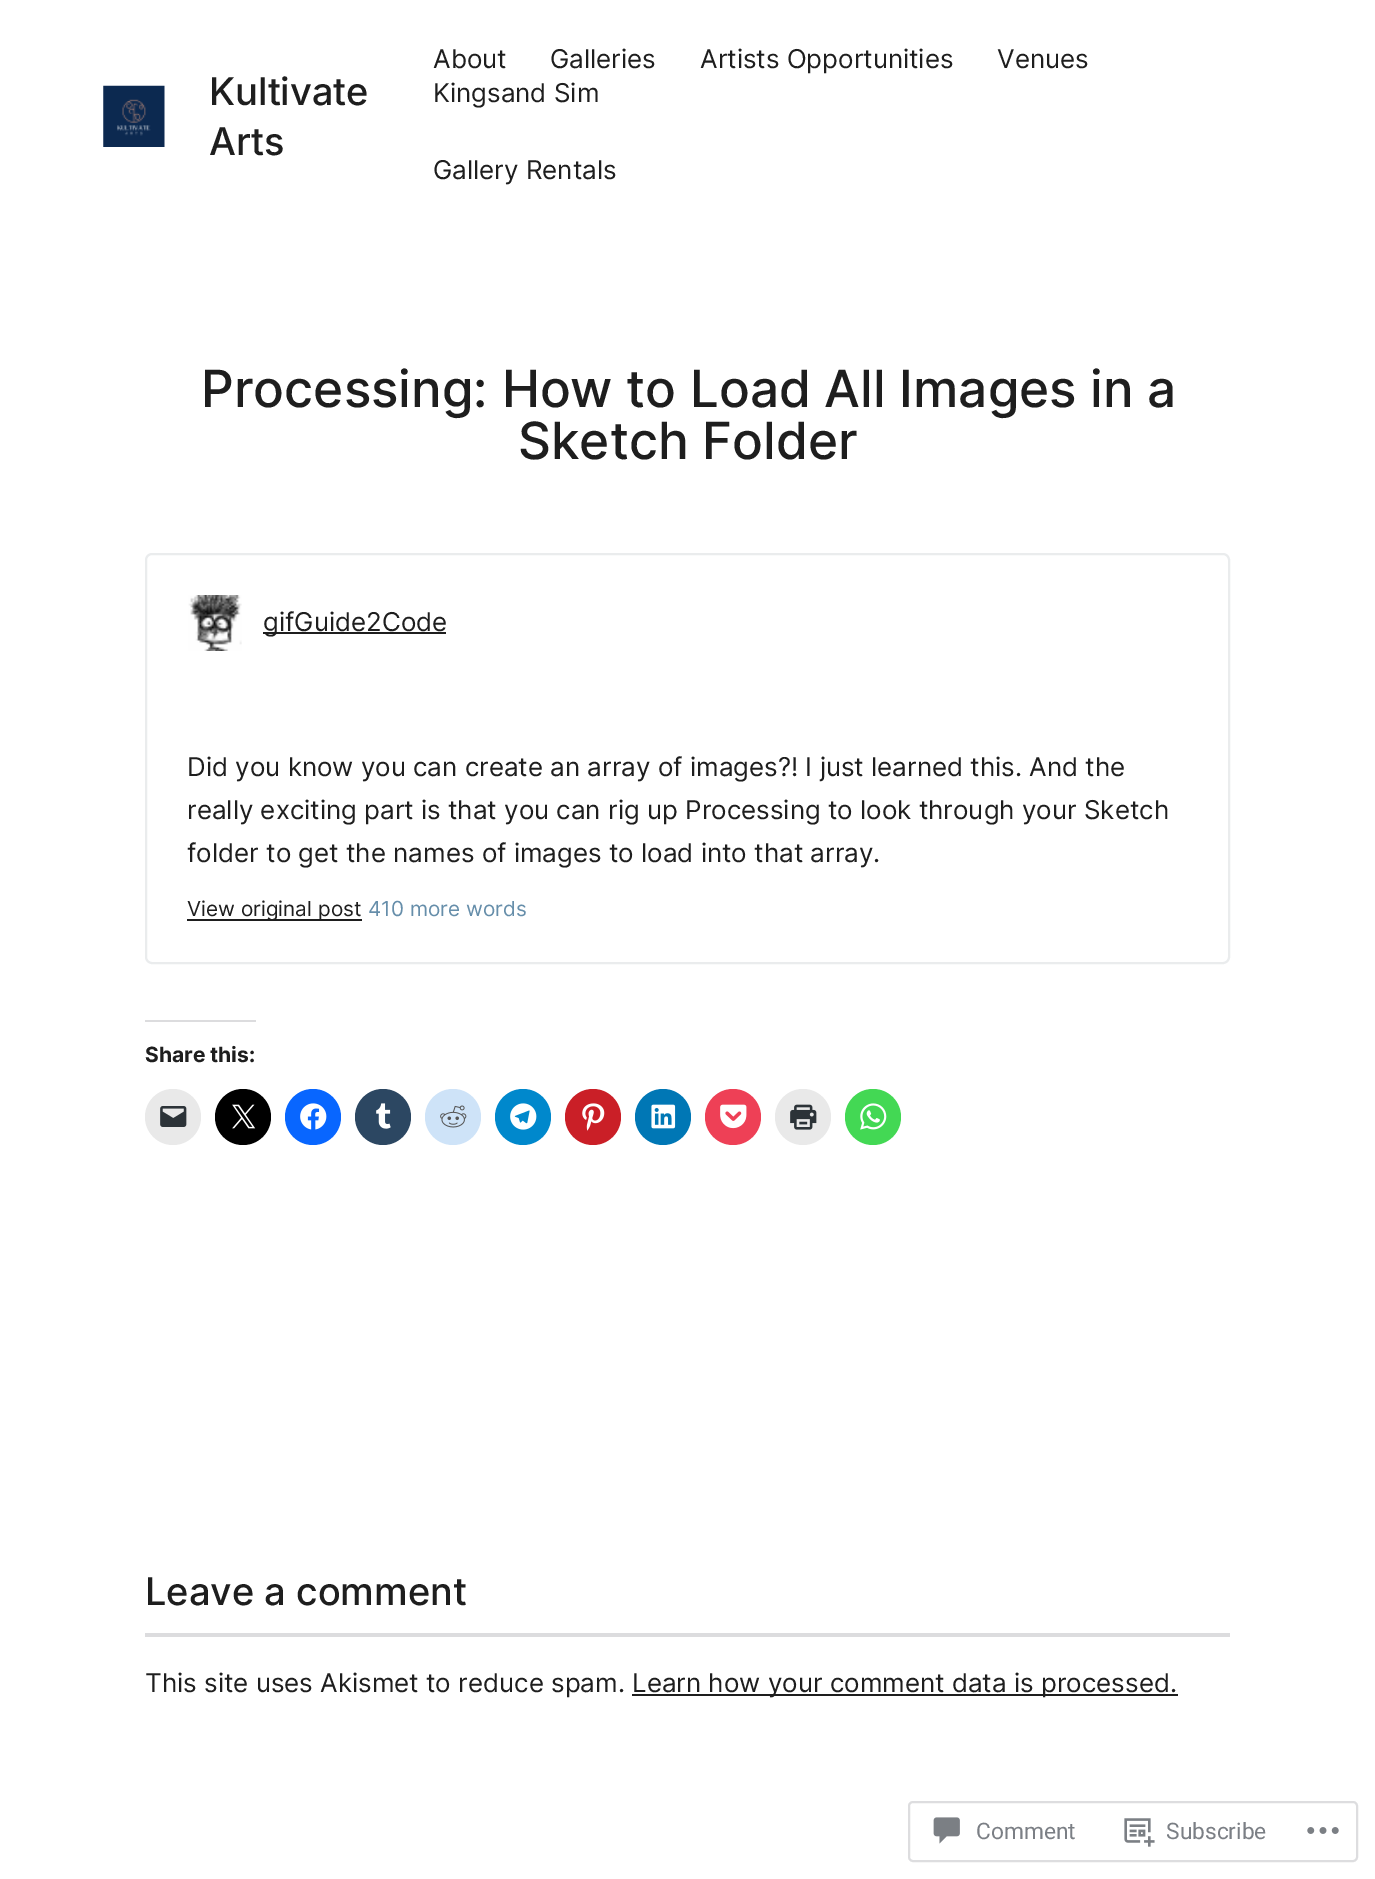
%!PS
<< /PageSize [1375 1879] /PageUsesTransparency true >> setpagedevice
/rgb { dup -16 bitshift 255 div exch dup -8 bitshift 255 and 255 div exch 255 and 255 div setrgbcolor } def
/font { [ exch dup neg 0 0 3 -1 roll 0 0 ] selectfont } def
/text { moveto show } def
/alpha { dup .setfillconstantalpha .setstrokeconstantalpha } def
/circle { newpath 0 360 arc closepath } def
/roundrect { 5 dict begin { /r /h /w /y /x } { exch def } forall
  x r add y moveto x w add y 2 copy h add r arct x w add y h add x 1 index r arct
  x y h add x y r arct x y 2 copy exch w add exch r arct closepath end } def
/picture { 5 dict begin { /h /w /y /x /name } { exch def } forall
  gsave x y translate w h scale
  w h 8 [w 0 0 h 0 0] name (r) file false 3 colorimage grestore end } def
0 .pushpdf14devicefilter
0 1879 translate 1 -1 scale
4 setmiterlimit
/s1 { /Inter-Medium 38 font 16#1E1E1E rgb } def
/s2 { /Inter-Regular 25.95 font 16#1E1E1E rgb } def
/s3 { /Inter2-Medium 51.25 font 16#1E1E1E rgb } def
/s4 { /Inter-Regular 20.75 font 16#1E1E1E rgb } def
/s5 { /Inter-Regular 20.75 font 16#668EAA rgb } def
/s6 { /Inter-Bold 21 font 16#1E1E1E rgb } def
/s7 { /Inter2-Medium 38 font 16#1E1E1E rgb } def
/s8 { /Roboto-Regular 22.75 font 16#7B7F85 rgb } def
16#FFFFFF rgb
0 0 1375 1879 rectfill
(pic1.raw) 103 85 62 62 picture
s1
(Kultivate) 209 105 text
(Arts) 209 155 text
s2
(About) 433 68 text
(Galleries) 550 68 text
(Artists Opportunities) 700 68 text
(Venues) 997 68 text
(Kingsand Sim) 433 102 text
(Gallery Rentals) 433 179 text
s3
(Processing: How to Load All Images in a) 201 407 text
(Sketch Folder) 518 459 text
0.1 alpha
16#2E4453 rgb
2 setlinewidth
146 554 1083 409 6 roundrect stroke
1 alpha
(pic2.raw) 188 595 54 56 picture
16#1E1E1E rgb
263 632 183 2 rectfill
s2
(gifGuide2Code) 263 631 text
(Did you know you can create an array of images?! I just learned this. And the) 187 776 text
(really exciting part is that you can rig up Processing to look through your Sketch) 187 819 text
(folder to get the names of images to load into that array.) 187 862 text
187 919 175 2 rectfill
s4
(View original post) 187 916 text
s5
(410 more words) 368 916 text
16#DCDCDE rgb
145 1020 111 2 rectfill
s6
(Share this:) 145 1062 text
16#E9E9E9 rgb
173 1117 28 circle fill
(pic3.raw) 160 1106 27 21 picture
16#000000 rgb
243 1117 28 circle fill
(pic4.raw) 232 1104 24 25 picture
16#0866FF rgb
313 1117 28 circle fill
(pic5.raw) 300 1103 27 27 picture
16#2C4762 rgb
383 1117 28 circle fill
(pic6.raw) 376 1103 15 26 picture
16#CEE3F8 rgb
453 1117 28 circle fill
(pic7.raw) 440 1105 27 23 picture
16#0088CC rgb
523 1117 28 circle fill
(pic8.raw) 510 1103 27 27 picture
16#CA1F27 rgb
593 1117 28 circle fill
(pic9.raw) 582 1103 23 28 picture
16#0077B5 rgb
663 1117 28 circle fill
(pic10.raw) 651 1104 25 25 picture
16#EE4056 rgb
733 1117 28 circle fill
(pic11.raw) 720 1104 27 25 picture
16#E9E9E9 rgb
803 1117 28 circle fill
(pic12.raw) 790 1104 27 26 picture
16#43D854 rgb
873 1117 28 circle fill
(pic13.raw) 860 1103 27 27 picture
s7
(Leave a comment) 145 1605 text
16#DCDCDE rgb
145 1633 1085 4 rectfill
s2
(This site uses Akismet to reduce spam.) 145 1692 text
632 1694 546 2 rectfill
(Learn how your comment data is processed.) 632 1692 text
16#DDDDDF rgb
909 1802 448 59 4 roundrect stroke
(pic14.raw) 933 1817 27 27 picture
s8
(Comment) 976 1839 text
(pic15.raw) 1124 1818 31 29 picture
(Subscribe) 1166 1839 text
(pic16.raw) 1307 1827 32 7 picture
.poppdf14devicefilter showpage
